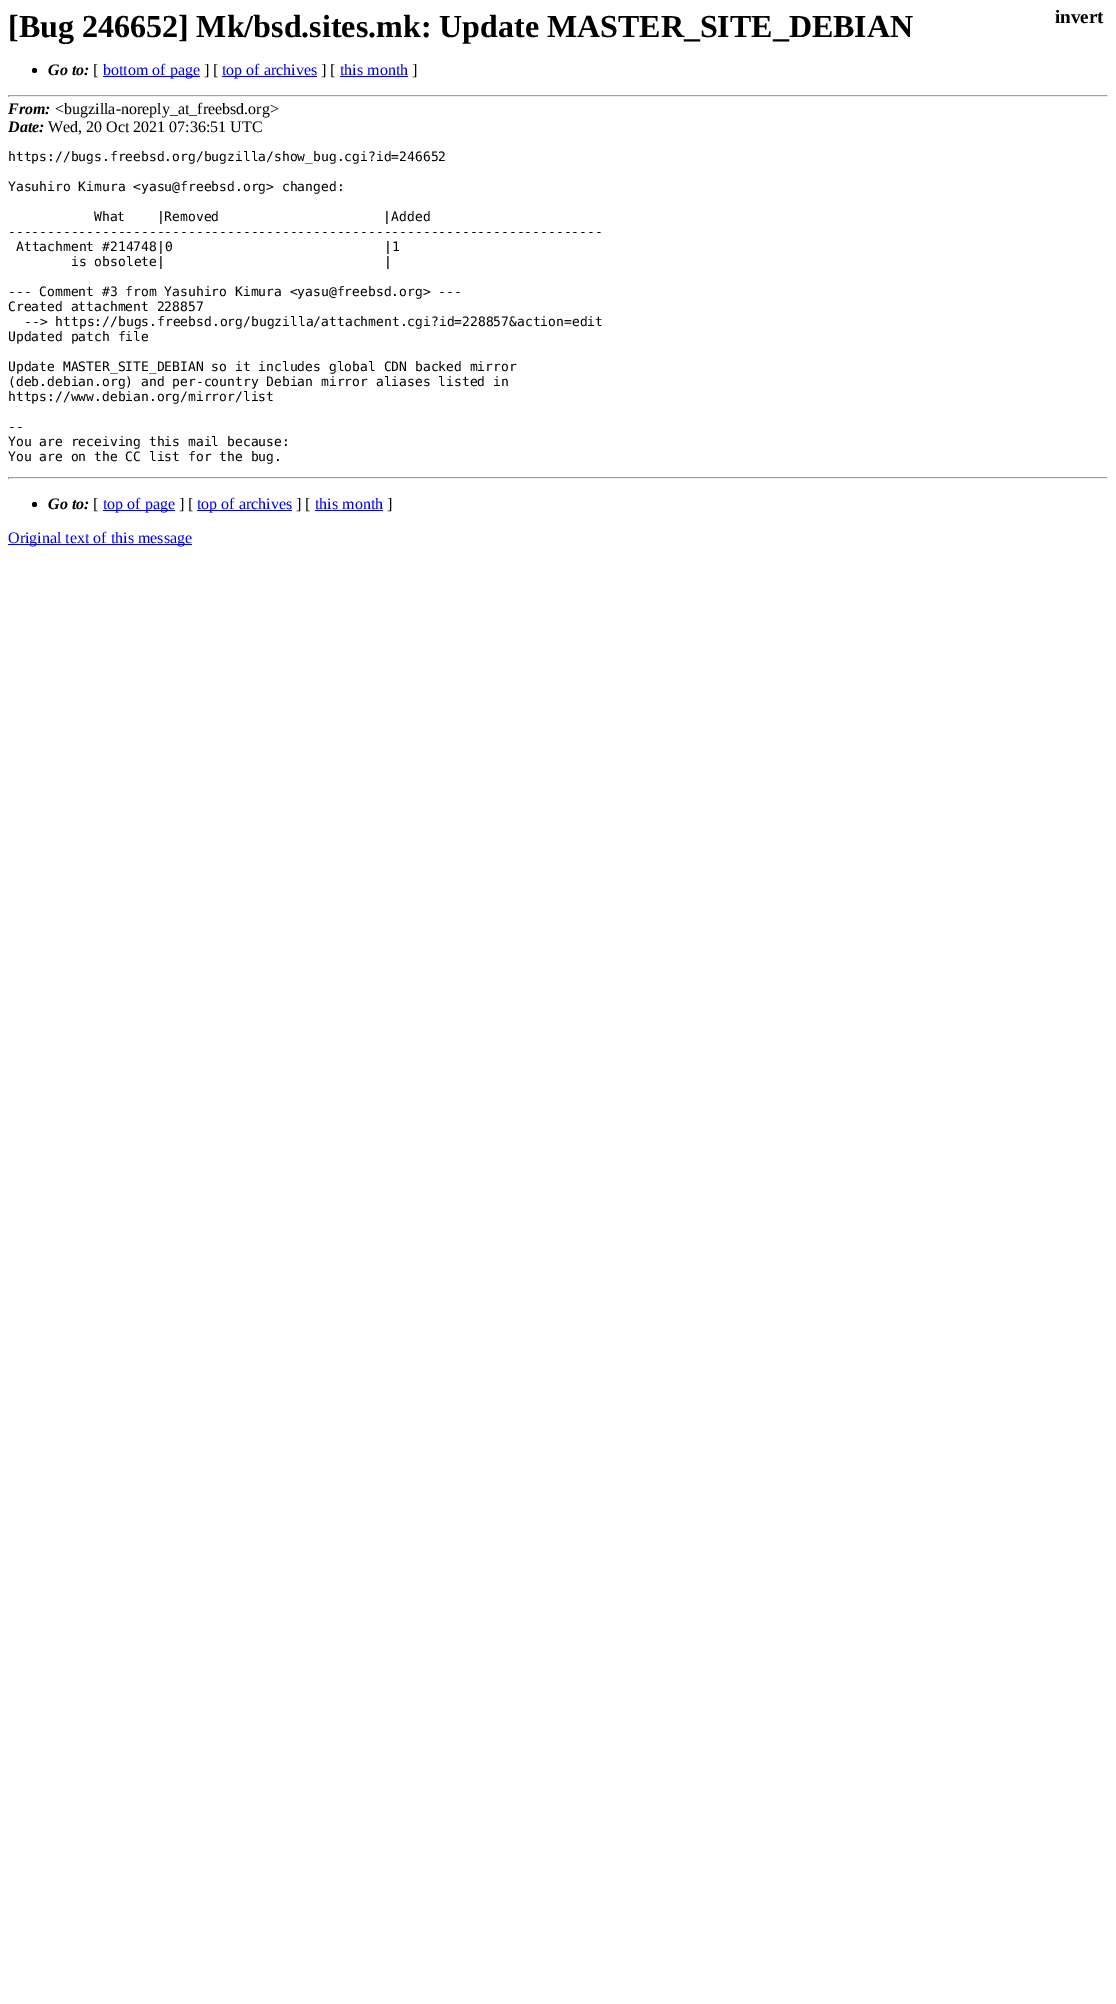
%!PS
<< /PageSize [1116 2004] >> setpagedevice
/rgb { dup -16 bitshift 255 div exch dup -8 bitshift 255 and 255 div exch 255 and 255 div setrgbcolor } def
/font { [ exch dup neg 0 0 3 -1 roll 0 0 ] selectfont } def
/text { moveto show } def
/circle { newpath 0 360 arc closepath } def
0 2004 translate 1 -1 scale
4 setmiterlimit
/s1 { /LiberationSerif-Bold 32 font 16#000000 rgb } def
/s2 { /LiberationSerif-BoldItalic 16 font 16#000000 rgb } def
/s3 { /LiberationSerif-Regular 16 font 16#000000 rgb } def
/s4 { /LiberationSerif-Regular 16 font 16#0000EE rgb } def
/s5 { /LiberationSerif-Bold 19 font 16#000000 rgb } def
/s6 { /DejaVuSansMono-Regular 13 font 16#000000 rgb } def
16#FFFFFF rgb
0 0 1116 2004 rectfill
s1
([Bug 246652] Mk/bsd.sites.mk: Update MASTER_SITE_DEBIAN) 8 37 text
34.5 70.5 2.5 circle fill
s2
(Go to:) 48 75 text
s3
([) 93 75 text
16#0000EE rgb
103 76 97 1 rectfill
(bottom of page) 103 75 text
s3
(] [) 204 75 text
16#0000EE rgb
222 76 95 1 rectfill
(top of archives) 222 75 text
s3
(] [) 321 75 text
s4
(this month) 340 75 text
340 76 68 1 rectfill
s3
(]) 412 75 text
16#9F9F9F rgb
8 95 1100 1 rectfill
16#EEEEEE rgb
1107 95 1 2 rectfill
8 96 1100 1 rectfill
16#9F9F9F rgb
8 95 1 2 rectfill
s5
(invert) 1055 23 text
s2
(From:) 8 114 text
s3
(<bugzilla-noreply_at_freebsd.org>) 55 114 text
s2
(Date:) 8 132 text
s3
(Wed, 20 Oct 2021 07:36:51 UTC) 48 132 text
s6
(https://bugs.freebsd.org/bugzilla/show_bug.cgi?id=246652) 8 161 text
(Yasuhiro Kimura <yasu@freebsd.org> changed:) 8 191 text
(What    |Removed                     |Added) 94 221 text
(----------------------------------------------------------------------------) 8 236 text
(Attachment #214748|0                           |1) 16 251 text
(is obsolete|                            |) 71 266 text
(--- Comment #3 from Yasuhiro Kimura <yasu@freebsd.org> ---) 8 296 text
(Created attachment 228857) 8 311 text
(--> https://bugs.freebsd.org/bugzilla/attachment.cgi?id=228857&action=edit) 24 326 text
(Updated patch file) 8 341 text
(Update MASTER_SITE_DEBIAN so it includes global CDN backed mirror) 8 371 text
(\(deb.debian.org\) and per-country Debian mirror aliases listed in) 8 386 text
(https://www.debian.org/mirror/list) 8 401 text
(--) 8 431 text
(You are receiving this mail because:) 8 446 text
(You are on the CC list for the bug.) 8 461 text
16#9F9F9F rgb
8 477 1100 1 rectfill
16#EEEEEE rgb
1107 477 1 2 rectfill
8 478 1100 1 rectfill
16#9F9F9F rgb
8 477 1 2 rectfill
16#000000 rgb
34.5 504.5 2.5 circle fill
s2
(Go to:) 48 509 text
s3
([) 93 509 text
16#0000EE rgb
103 510 72 1 rectfill
(top of page) 103 509 text
s3
(] [) 179 509 text
16#0000EE rgb
197 510 95 1 rectfill
(top of archives) 197 509 text
s3
(] [) 296 509 text
s4
(this month) 315 509 text
315 510 68 1 rectfill
s3
(]) 387 509 text
16#0000EE rgb
8 544 184 1 rectfill
(Original text of this message) 8 543 text
showpage
